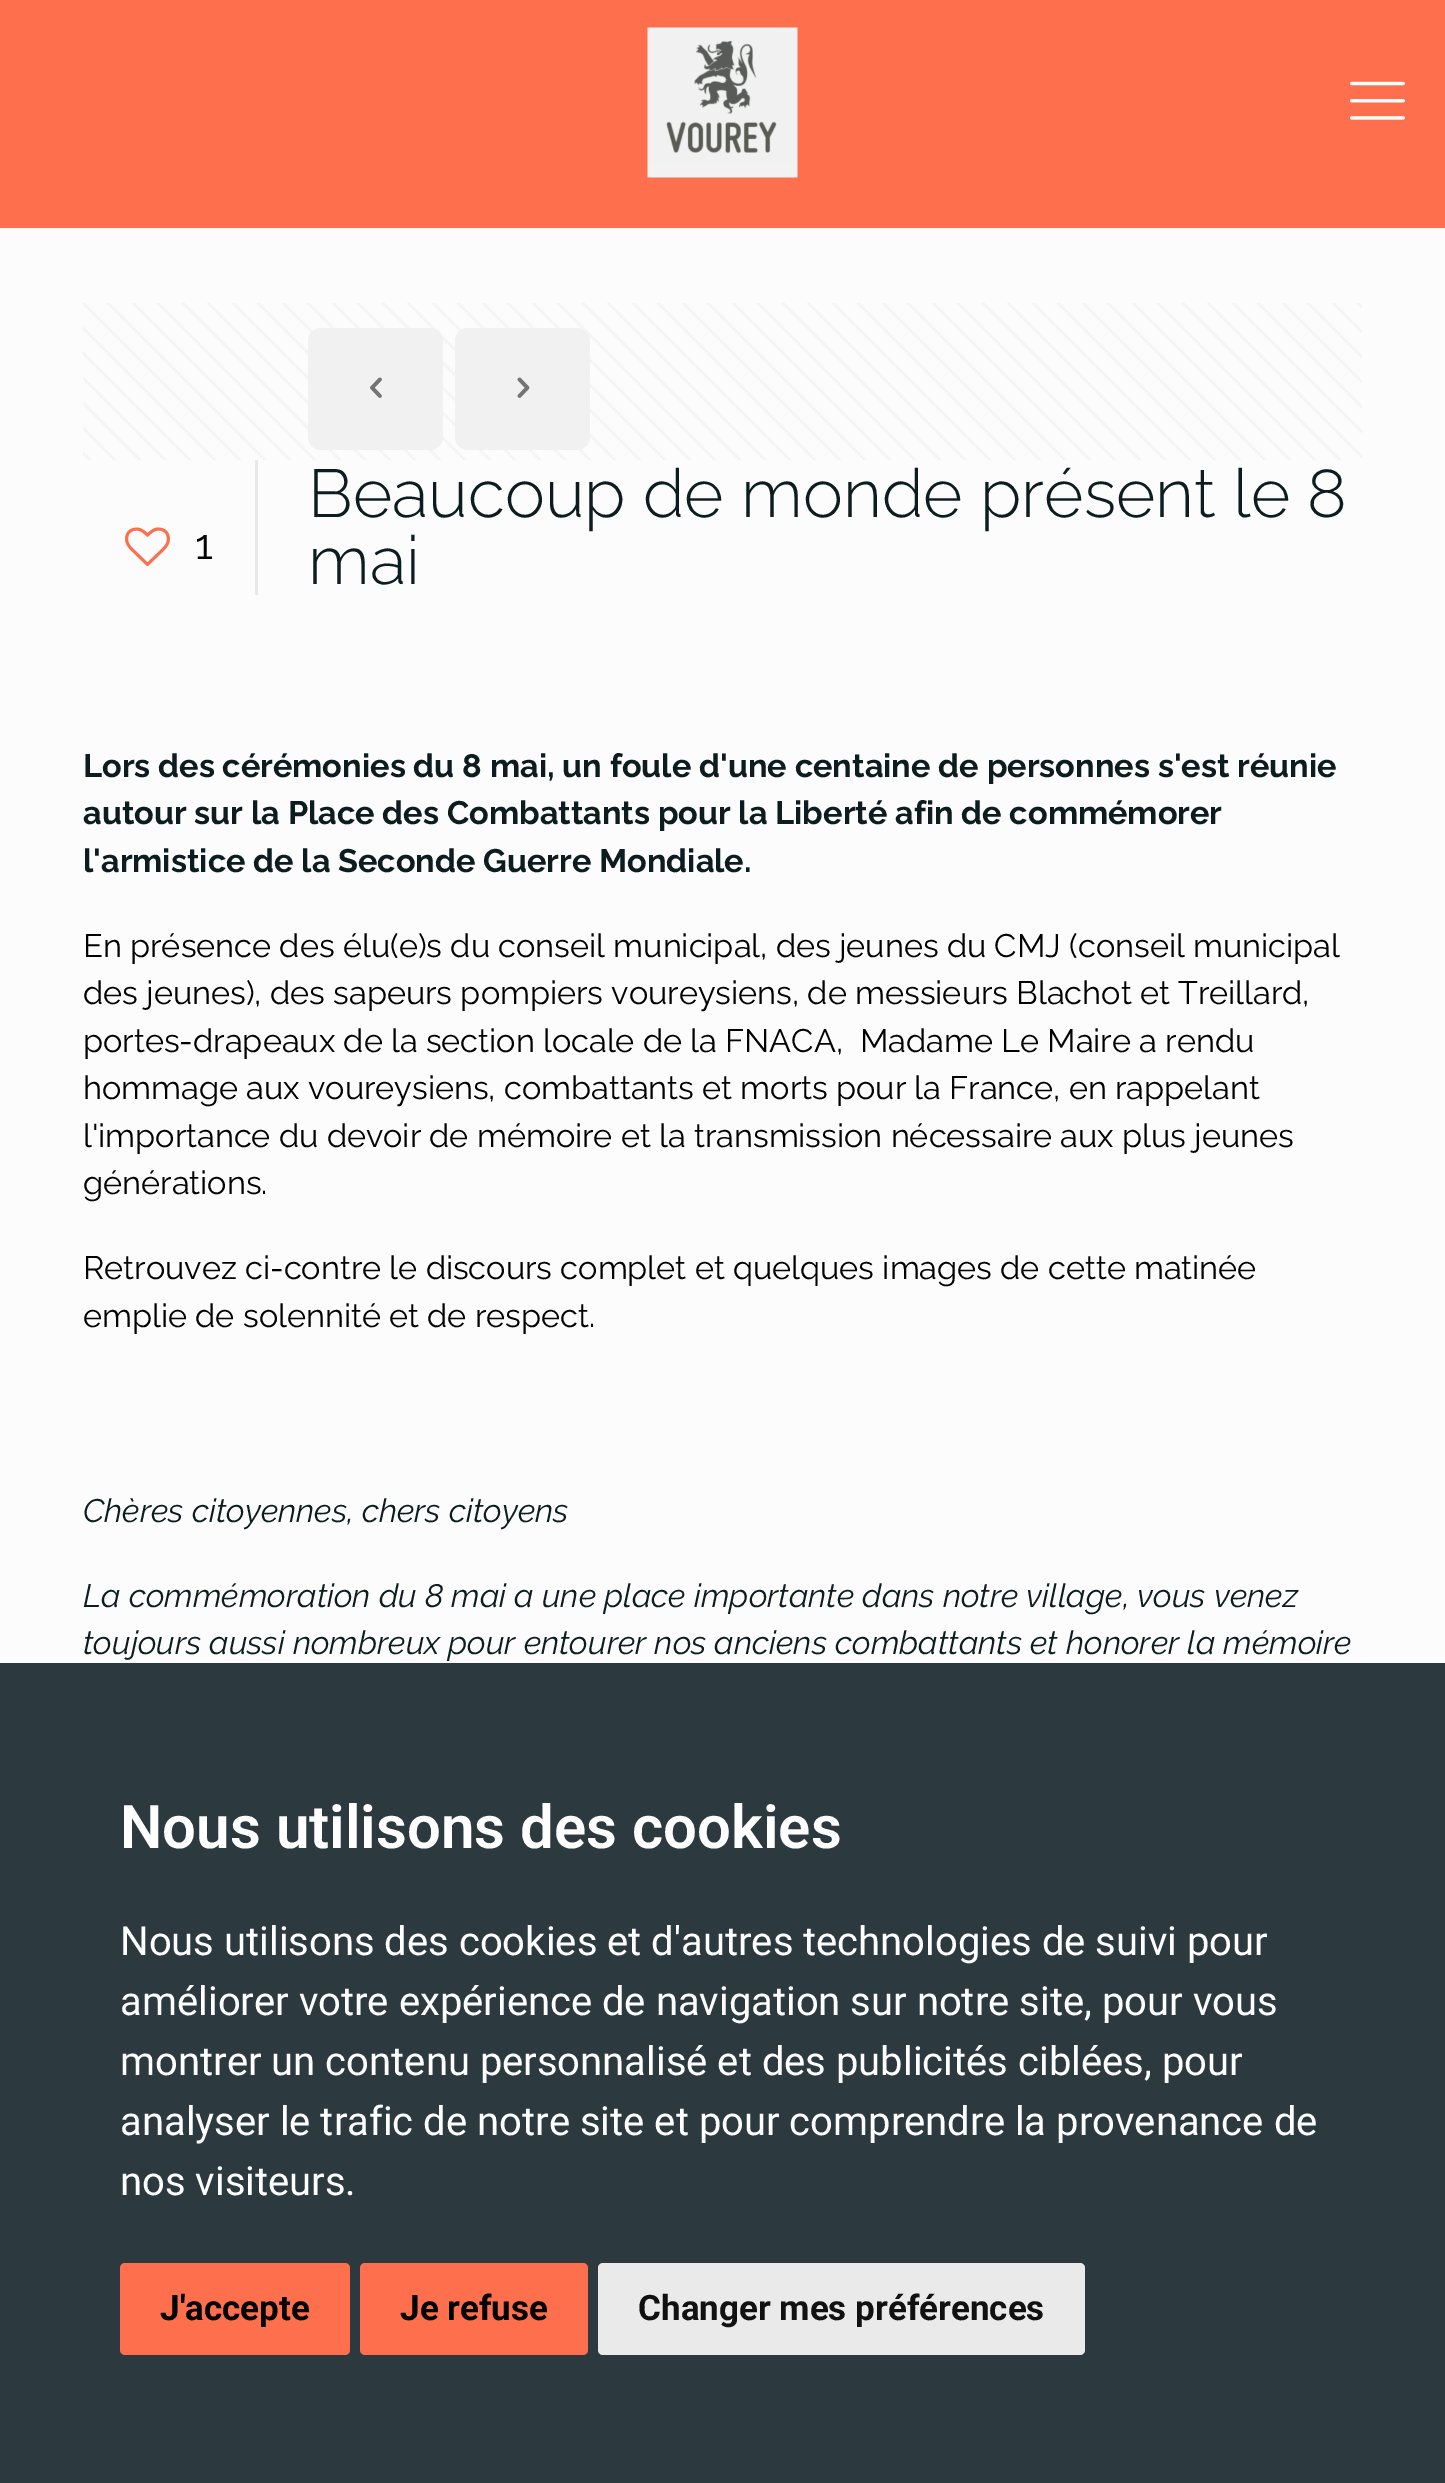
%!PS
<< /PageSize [1445 2483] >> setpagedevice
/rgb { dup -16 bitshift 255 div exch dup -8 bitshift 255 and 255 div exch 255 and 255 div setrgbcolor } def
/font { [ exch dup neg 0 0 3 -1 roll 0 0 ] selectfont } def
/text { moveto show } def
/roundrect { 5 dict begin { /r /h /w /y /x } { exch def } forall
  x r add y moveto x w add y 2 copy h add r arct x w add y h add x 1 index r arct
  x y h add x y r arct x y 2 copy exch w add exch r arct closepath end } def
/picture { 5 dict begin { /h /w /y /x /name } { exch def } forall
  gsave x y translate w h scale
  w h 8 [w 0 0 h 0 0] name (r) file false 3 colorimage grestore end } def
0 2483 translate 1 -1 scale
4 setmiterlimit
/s1 { /Raleway-Regular 42 font 16#000000 rgb } def
/s2 { /Raleway-Light 67.5 font 16#0C1C1F rgb } def
/s3 { /Raleway-Bold 32.5 font 16#0C1C1F rgb } def
/s4 { /Raleway-Regular 32.5 font 16#000000 rgb } def
/s5 { /Raleway-Italic 32.5 font 16#0C1C1F rgb } def
/s6 { /Roboto-SemiBold 60 font 16#FFFFFF rgb } def
/s7 { /Roboto-Regular 40 font 16#FFFFFF rgb } def
/s8 { /Roboto-Bold 35 font 16#000000 rgb } def
/s9 { /Roboto-Bold 35 font 16#111111 rgb } def
16#FE6F4D rgb
0 0 1445 2483 rectfill
(pic1.raw) 647 27 151 151 picture
(pic2.raw) 1350 81 55 39 picture
16#FCFCFC rgb
0 228 1445 1435 rectfill
(pic3.raw) 83 303 1279 157 picture
16#F1F1F1 rgb
308 328 135 122 13 roundrect fill
(pic4.raw) 370 377 12 21 picture
455 328 135 122 13 roundrect fill
(pic5.raw) 517 377 13 21 picture
(pic6.raw) 125 527 45 39 picture
s1
(1) 195 559 text
16#E8E8E8 rgb
255 460 3 135 rectfill
s2
(Beaucoup de monde présent le 8) 308 517 text
(mai) 308 584 text
s3
(Lors des cérémonies du 8 mai, un foule d'une centaine de personnes s'est réunie) 83 777 text
(autour sur la Place des Combattants pour la Liberté afin de commémorer) 83 824 text
(l'armistice de la Seconde Guerre Mondiale.) 83 872 text
s4
(En présence des élu\(e\)s du conseil municipal, des jeunes du CMJ \(conseil municipal) 83 957 text
(des jeunes\), des sapeurs pompiers voureysiens, de messieurs Blachot et Treillard,) 83 1004 text
(portes-drapeaux de la section locale de la FNACA,  Madame Le Maire a rendu) 83 1052 text
(hommage aux voureysiens, combattants et morts pour la France, en rappelant) 83 1099 text
(l'importance du devoir de mémoire et la transmission nécessaire aux plus jeunes) 83 1147 text
(générations.) 83 1194 text
(Retrouvez ci-contre le discours complet et quelques images de cette matinée) 83 1279 text
(emplie de solennité et de respect.) 83 1327 text
s5
(Chères citoyennes, chers citoyens) 83 1522 text
(La commémoration du 8 mai a une place importante dans notre village, vous venez) 83 1607 text
(toujours aussi nombreux pour entourer nos anciens combattants et honorer la mémoire) 83 1654 text
16#2C3A40 rgb
0 1663 1445 820 rectfill
s6
(Nous utilisons des cookies) 120 1848 text
s7
(Nous utilisons des cookies et d'autres technologies de suivi pour) 120 1955 text
(améliorer votre expérience de navigation sur notre site, pour vous) 120 2015 text
(montrer un contenu personnalisé et des publicités ciblées, pour) 120 2075 text
(analyser le trafic de notre site et pour comprendre la provenance de) 120 2135 text
(nos visiteurs.) 120 2195 text
16#FE6F4D rgb
120 2263 230 92 5 roundrect fill
s8
(J'accepte) 160 2320 text
16#FE6F4D rgb
360 2263 228 92 5 roundrect fill
s8
(Je refuse) 400 2320 text
16#EAEAEA rgb
598 2263 487 92 5 roundrect fill
s9
(Changer mes préférences) 638 2320 text
showpage
